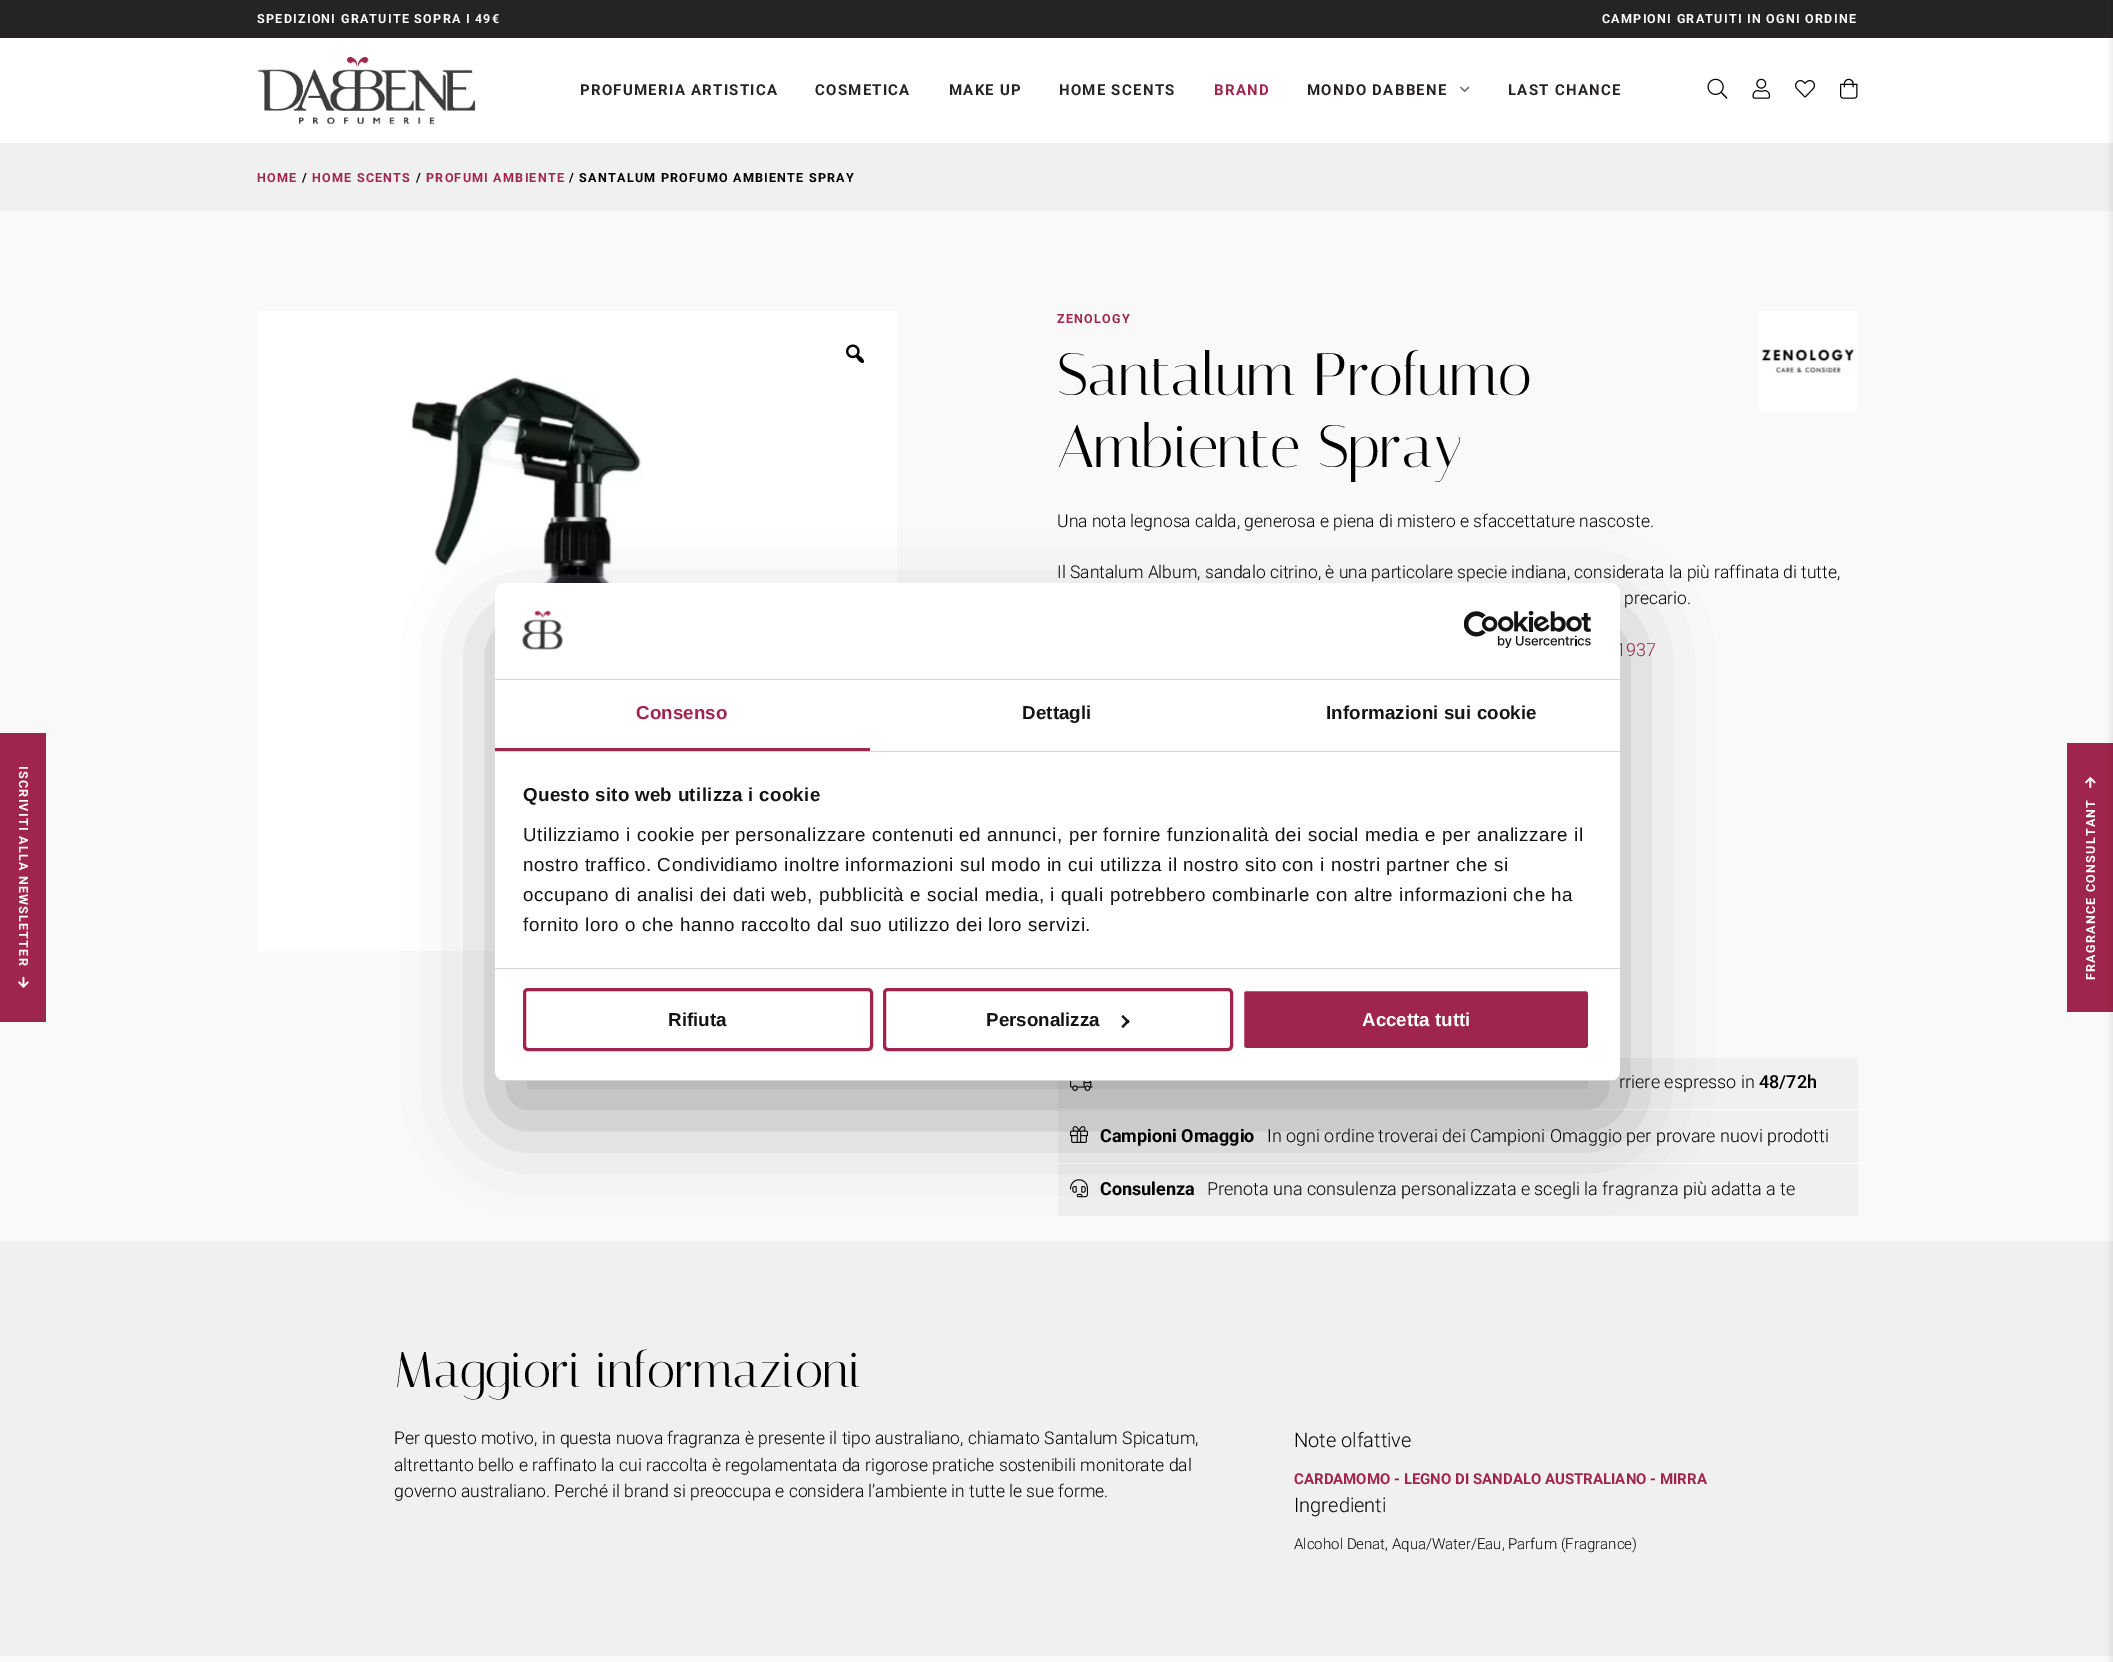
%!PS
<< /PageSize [2113 1662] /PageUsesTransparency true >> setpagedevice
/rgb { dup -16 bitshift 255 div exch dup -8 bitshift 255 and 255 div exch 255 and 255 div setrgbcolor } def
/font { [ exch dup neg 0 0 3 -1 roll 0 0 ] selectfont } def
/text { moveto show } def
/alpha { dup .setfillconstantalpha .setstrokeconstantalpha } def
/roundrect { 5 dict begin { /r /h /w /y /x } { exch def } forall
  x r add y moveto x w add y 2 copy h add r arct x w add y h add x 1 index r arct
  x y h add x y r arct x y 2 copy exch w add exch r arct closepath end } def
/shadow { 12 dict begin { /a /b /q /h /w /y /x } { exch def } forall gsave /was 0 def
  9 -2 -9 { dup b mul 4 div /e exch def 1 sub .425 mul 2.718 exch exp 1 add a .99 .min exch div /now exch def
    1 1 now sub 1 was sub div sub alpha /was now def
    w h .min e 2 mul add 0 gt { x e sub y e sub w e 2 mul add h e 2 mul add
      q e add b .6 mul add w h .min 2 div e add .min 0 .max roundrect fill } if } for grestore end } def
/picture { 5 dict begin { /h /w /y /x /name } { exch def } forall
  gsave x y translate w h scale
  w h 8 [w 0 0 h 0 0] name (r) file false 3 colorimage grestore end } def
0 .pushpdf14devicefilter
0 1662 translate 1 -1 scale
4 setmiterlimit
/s1 { /Italiana-Regular 60 font 16#000000 rgb } def
/s2 { /Roboto-Light 17.5 font 16#000000 rgb } def
/s3 { /Roboto-Light 18 font 16#9F254C rgb } def
/s4 { /Roboto-Light 18 font 16#000000 rgb } def
/s5 { /Roboto-Medium 18 font 16#000000 rgb } def
/s6 { /Roboto-Bold 18 font 16#000000 rgb } def
/s7 { /Italiana-Regular 50 font 16#000000 rgb } def
/s8 { /Roboto-Light 20 font 16#000000 rgb } def
/s9 { /Roboto-Bold 15 font 16#9F254C rgb } def
/s10 { /Roboto-Light 15 font 16#000000 rgb } def
/s11 { /LiberationSans-Bold 18.75 font 16#141414 rgb } def
/s12 { /LiberationSans-Bold 18.75 font 16#FFFFFF rgb } def
16#F9F9F9 rgb
0 0 2113 1662 rectfill
16#FFFFFF rgb
0 38 2113 105 rectfill
16#252422 rgb
0 0 2113 38 rectfill
/Roboto-Bold 12.5 font
16#FFFFFF rgb
257 23 moveto 1.25 0 (SPEDIZIONI GRATUITE SOPRA I 49€) ashow
1602 23 moveto 1.25 0 (CAMPIONI GRATUITI IN OGNI ORDINE) ashow
(pic1.raw) 258 57 218 68 picture
/Roboto-Bold 15 font
16#252422 rgb
580 95 moveto 1.25 0 (PROFUMERIA ARTISTICA) ashow
815 95 moveto 1.25 0 (COSMETICA) ashow
949 95 moveto 1.25 0 (MAKE UP) ashow
1059 95 moveto 1.25 0 (HOME SCENTS) ashow
16#9F254C rgb
1214 95 moveto 1.25 0 (BRAND) ashow
16#252422 rgb
1307 95 moveto 1.25 0 (MONDO DABBENE) ashow
(pic2.raw) 1460 86 10 7 picture
1508 95 moveto 1.25 0 (LAST CHANCE) ashow
(pic3.raw) 1707 78 21 21 picture
(pic4.raw) 1752 78 18 21 picture
(pic5.raw) 1795 80 20 18 picture
(pic6.raw) 1840 78 18 21 picture
16#F0F0F0 rgb
0 143 2113 68 rectfill
0 1241 2113 415 rectfill
16#9F254C rgb
2067 743 46 269 rectfill
16#000000 rgb
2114 0 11 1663 0 4 0.2 shadow
/Roboto-Bold 12.5 font
16#9F254C rgb
257 182 moveto 1.25 0 (HOME) ashow
16#000000 rgb
302 182 moveto 1.25 0 (/) ashow
16#9F254C rgb
312 182 moveto 1.25 0 (HOME SCENTS) ashow
16#000000 rgb
416 182 moveto 1.25 0 (/) ashow
16#9F254C rgb
426 182 moveto 1.25 0 (PROFUMI AMBIENTE) ashow
16#000000 rgb
569 182 moveto 1.25 0 (/ SANTALUM PROFUMO AMBIENTE SPRAY) ashow
(pic7.raw) 257 311 640 640 picture
(pic8.raw) 846 344 18 19 picture
16#9F254C rgb
1057 323 moveto 1.25 0 (ZENOLOGY) ashow
s1
(Santalum Profumo) 1057 395 text
(Ambiente Spray) 1057 467 text
16#FFFFFF rgb
1758 311 100 100 rectfill
(pic9.raw) 1761 349 94 25 picture
s2
(Una nota legnosa calda, generosa e piena di mistero e sfaccettature nascoste.) 1057 527 text
(Il Santalum Album, sandalo citrino, è una particolare specie indiana, considerata la più raffinata di tutte,) 1057 578 text
(precario.) 1624 604 text
s3
(1937) 1616 656 text
16#F0F0F0 rgb
1058 1058 800 158 rectfill
16#FFFFFF rgb
1058 1109 800 1 rectfill
(pic10.raw) 1070 1081 23 10 picture
s4
(rriere espresso in) 1619 1088 text
s5
(48/72h) 1759 1088 text
16#FFFFFF rgb
1058 1163 800 1 rectfill
(pic11.raw) 1070 1126 18 17 picture
s6
(Campioni Omaggio) 1100 1142 text
s4
(In ogni ordine troverai dei Campioni Omaggio per provare nuovi prodotti) 1267 1142 text
(pic12.raw) 1070 1179 18 19 picture
s6
(Consulenza) 1100 1195 text
s4
(Prenota una consulenza personalizzata e scegli la fragranza più adatta a te) 1207 1195 text
s7
(Maggiori informazioni) 394 1387 text
s2
(Per questo motivo, in questa nuova fragranza è presente il tipo australiano, chiamato Santalum Spicatum,) 394 1444 text
(altrettanto bello e raffinato la cui raccolta è regolamentata da rigorose pratiche sostenibili monitorate dal) 394 1471 text
(governo australiano. Perché il brand si preoccupa e considera l’ambiente in tutte le sue forme.) 394 1497 text
s8
(Note olfattive) 1294 1447 text
s9
(CARDAMOMO - LEGNO DI SANDALO AUSTRALIANO - MIRRA) 1294 1484 text
s8
(Ingredienti) 1294 1512 text
s10
(Alcohol Denat, Aqua/Water/Eau, Parfum \(Fragrance\)) 1294 1549 text
495 623 1125 498 10 42.5 0.3 shadow
16#FFFFFF rgb
495 583 1125 498 10 roundrect fill
16#D6D6D6 rgb
495 679 1125 1 rectfill
(pic13.raw) 522 610 41 40 picture
(pic14.raw) 1464 611 127 38 picture
495 751 1125 1 rectfill
16#9F254C rgb
495 748 375 3 rectfill
/LiberationSans-Bold 18.75 font
636 719 moveto 0.1 0 (Consenso) ashow
16#141414 rgb
1022 719 moveto 0.1 0 (Dettagli) ashow
1326 719 moveto 0.1 0 (Informazioni sui cookie) ashow
16#D6D6D6 rgb
495 968 1125 1 rectfill
16#141414 rgb
523 801 moveto 0.3 0 (Questo sito web utilizza i cookie) ashow
/LiberationSans-Regular 18.75 font
523 841 moveto 0.62 0 (Utilizziamo i cookie per personalizzare contenuti ed annunci, per fornire funzionalità dei social media e per analizzare il) ashow
523 871 moveto 0.62 0 (nostro traffico. Condividiamo inoltre informazioni sul modo in cui utilizza il nostro sito con i nostri partner che si) ashow
523 901 moveto 0.62 0 (occupano di analisi dei dati web, pubblicità e social media, i quali potrebbero combinarle con altre informazioni che ha) ashow
523 931 moveto 0.62 0 (fornito loro o che hanno raccolto dal suo utilizzo dei loro servizi.) ashow
gsave
495 583 1125 498 10 roundrect clip newpath
16#D6D6D6 rgb
495 1080 1125 1 rectfill
grestore
16#9F254C rgb
3 setlinewidth
524.5 989.5 347 60 3.5 roundrect stroke
s11
(Rifiuta) 668 1026 text
16#9F254C rgb
884.5 989.5 347 60 3.5 roundrect stroke
s11
(Personalizza) 986 1026 text
1123 1015 moveto 1129.5 1021.5 lineto 1128 1023.5 lineto 1121.5 1016.5 lineto closepath fill
1128 1019.5 moveto 1129.5 1021.5 lineto 1123 1028 lineto 1121.5 1026.5 lineto closepath fill
16#9F254C rgb
1242.5 989.5 347 60 3.5 roundrect gsave fill grestore
16#FFFFFF rgb
stroke
(Accetta tutti) 1362 1026 text
16#9F254C rgb
0 733 46 289 rectfill
/Roboto-Bold 12.5 font
16#FFFFFF rgb
gsave 19 766 translate 90 rotate 0 0 moveto 1.25 0 (ISCRIVITI ALLA NEWSLETTER) ashow grestore
(pic15.raw) 18 976 11 12 picture
(pic16.raw) 2085 777 11 11 picture
gsave 2095 980 translate -90 rotate 0 0 moveto 1.25 0 (FRAGRANCE CONSULTANT) ashow grestore
.poppdf14devicefilter showpage
